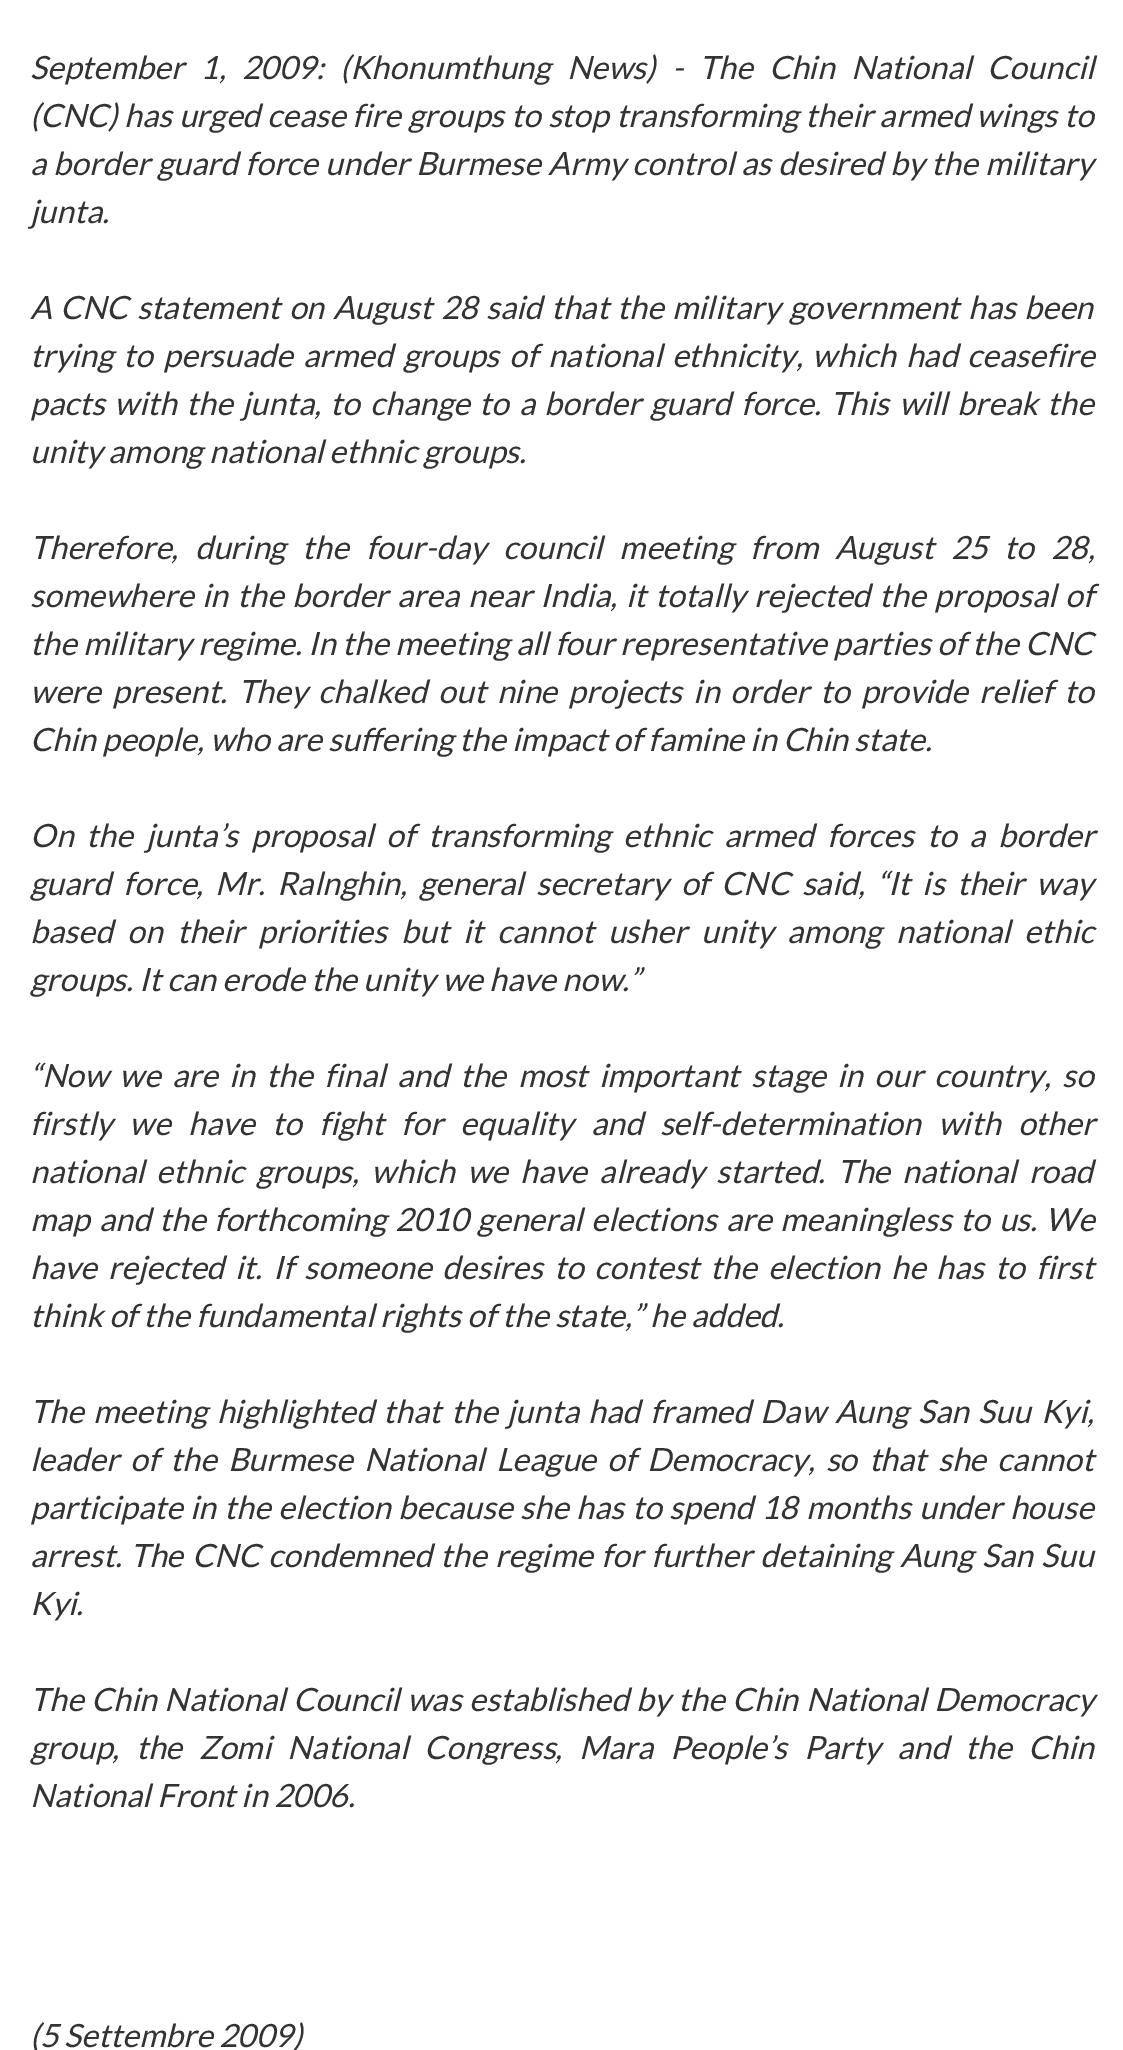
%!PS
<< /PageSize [1123 2050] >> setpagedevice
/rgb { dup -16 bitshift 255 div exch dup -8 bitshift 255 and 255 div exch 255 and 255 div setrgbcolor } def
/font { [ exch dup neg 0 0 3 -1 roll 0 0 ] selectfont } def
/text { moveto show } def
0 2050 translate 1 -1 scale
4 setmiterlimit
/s1 { /Lato-Italic 32 font 16#333333 rgb } def
16#FFFFFF rgb
0 0 1123 2050 rectfill
/Lato-Italic 32 font
16#333333 rgb
30 79 moveto 10 0 32 (September 1, 2009: \(Khonumthung News\) - The Chin National Council) widthshow
30 127 moveto 0.6 0 32 (\(CNC\) has urged cease fire groups to stop transforming their armed wings to) widthshow
30 175 moveto 1 0 32 (a border guard force under Burmese Army control as desired by the military) widthshow
(junta.) 30 223 text
30 319 moveto 2.25 0 32 (A CNC statement on August 28 said that the military government has been) widthshow
30 367 moveto 3.75 0 32 (trying to persuade armed groups of national ethnicity, which had ceasefire) widthshow
30 415 moveto 3.4 0 32 (pacts with the junta, to change to a border guard force. This will break the) widthshow
(unity among national ethnic groups.) 30 463 text
30 559 moveto 10.5 0 32 (Therefore, during the four-day council meeting from August 25 to 28,) widthshow
30 607 moveto 2.6 0 32 (somewhere in the border area near India, it totally rejected the proposal of) widthshow
30 655 moveto 0.25 0 32 (the military regime. In the meeting all four representative parties of the CNC) widthshow
30 703 moveto 4.9 0 32 (were present. They chalked out nine projects in order to provide relief to) widthshow
(Chin people, who are suffering the impact of famine in Chin state.) 30 751 text
30 847 moveto 6.75 0 32 (On the junta’s proposal of transforming ethnic armed forces to a border) widthshow
30 895 moveto 6 0 32 (guard force, Mr. Ralnghin, general secretary of CNC said, “It is their way) widthshow
30 943 moveto 8 0 32 (based on their priorities but it cannot usher unity among national ethic) widthshow
(groups. It can erode the unity we have now.”) 30 991 text
30 1087 moveto 5.1 0 32 (“Now we are in the final and the most important stage in our country, so) widthshow
30 1135 moveto 11 0 32 (firstly we have to fight for equality and self-determination with other) widthshow
30 1183 moveto 6 0 32 (national ethnic groups, which we have already started. The national road) widthshow
30 1231 moveto 2.25 0 32 (map and the forthcoming 2010 general elections are meaningless to us. We) widthshow
30 1279 moveto 4.75 0 32 (have rejected it. If someone desires to contest the election he has to first) widthshow
(think of the fundamental rights of the state,” he added.) 30 1327 text
30 1423 moveto 3.4 0 32 (The meeting highlighted that the junta had framed Daw Aung San Suu Kyi,) widthshow
30 1471 moveto 5.1 0 32 (leader of the Burmese National League of Democracy, so that she cannot) widthshow
30 1519 moveto 1.5 0 32 (participate in the election because she has to spend 18 months under house) widthshow
30 1567 moveto 2.25 0 32 (arrest. The CNC condemned the regime for further detaining Aung San Suu) widthshow
(Kyi.) 30 1615 text
30 1711 moveto 1.5 0 32 (The Chin National Council was established by the Chin National Democracy) widthshow
30 1759 moveto 10.25 0 32 (group, the Zomi National Congress, Mara People’s Party and the Chin) widthshow
(National Front in 2006.) 30 1807 text
(\(5 Settembre 2009\)) 30 2047 text
showpage
